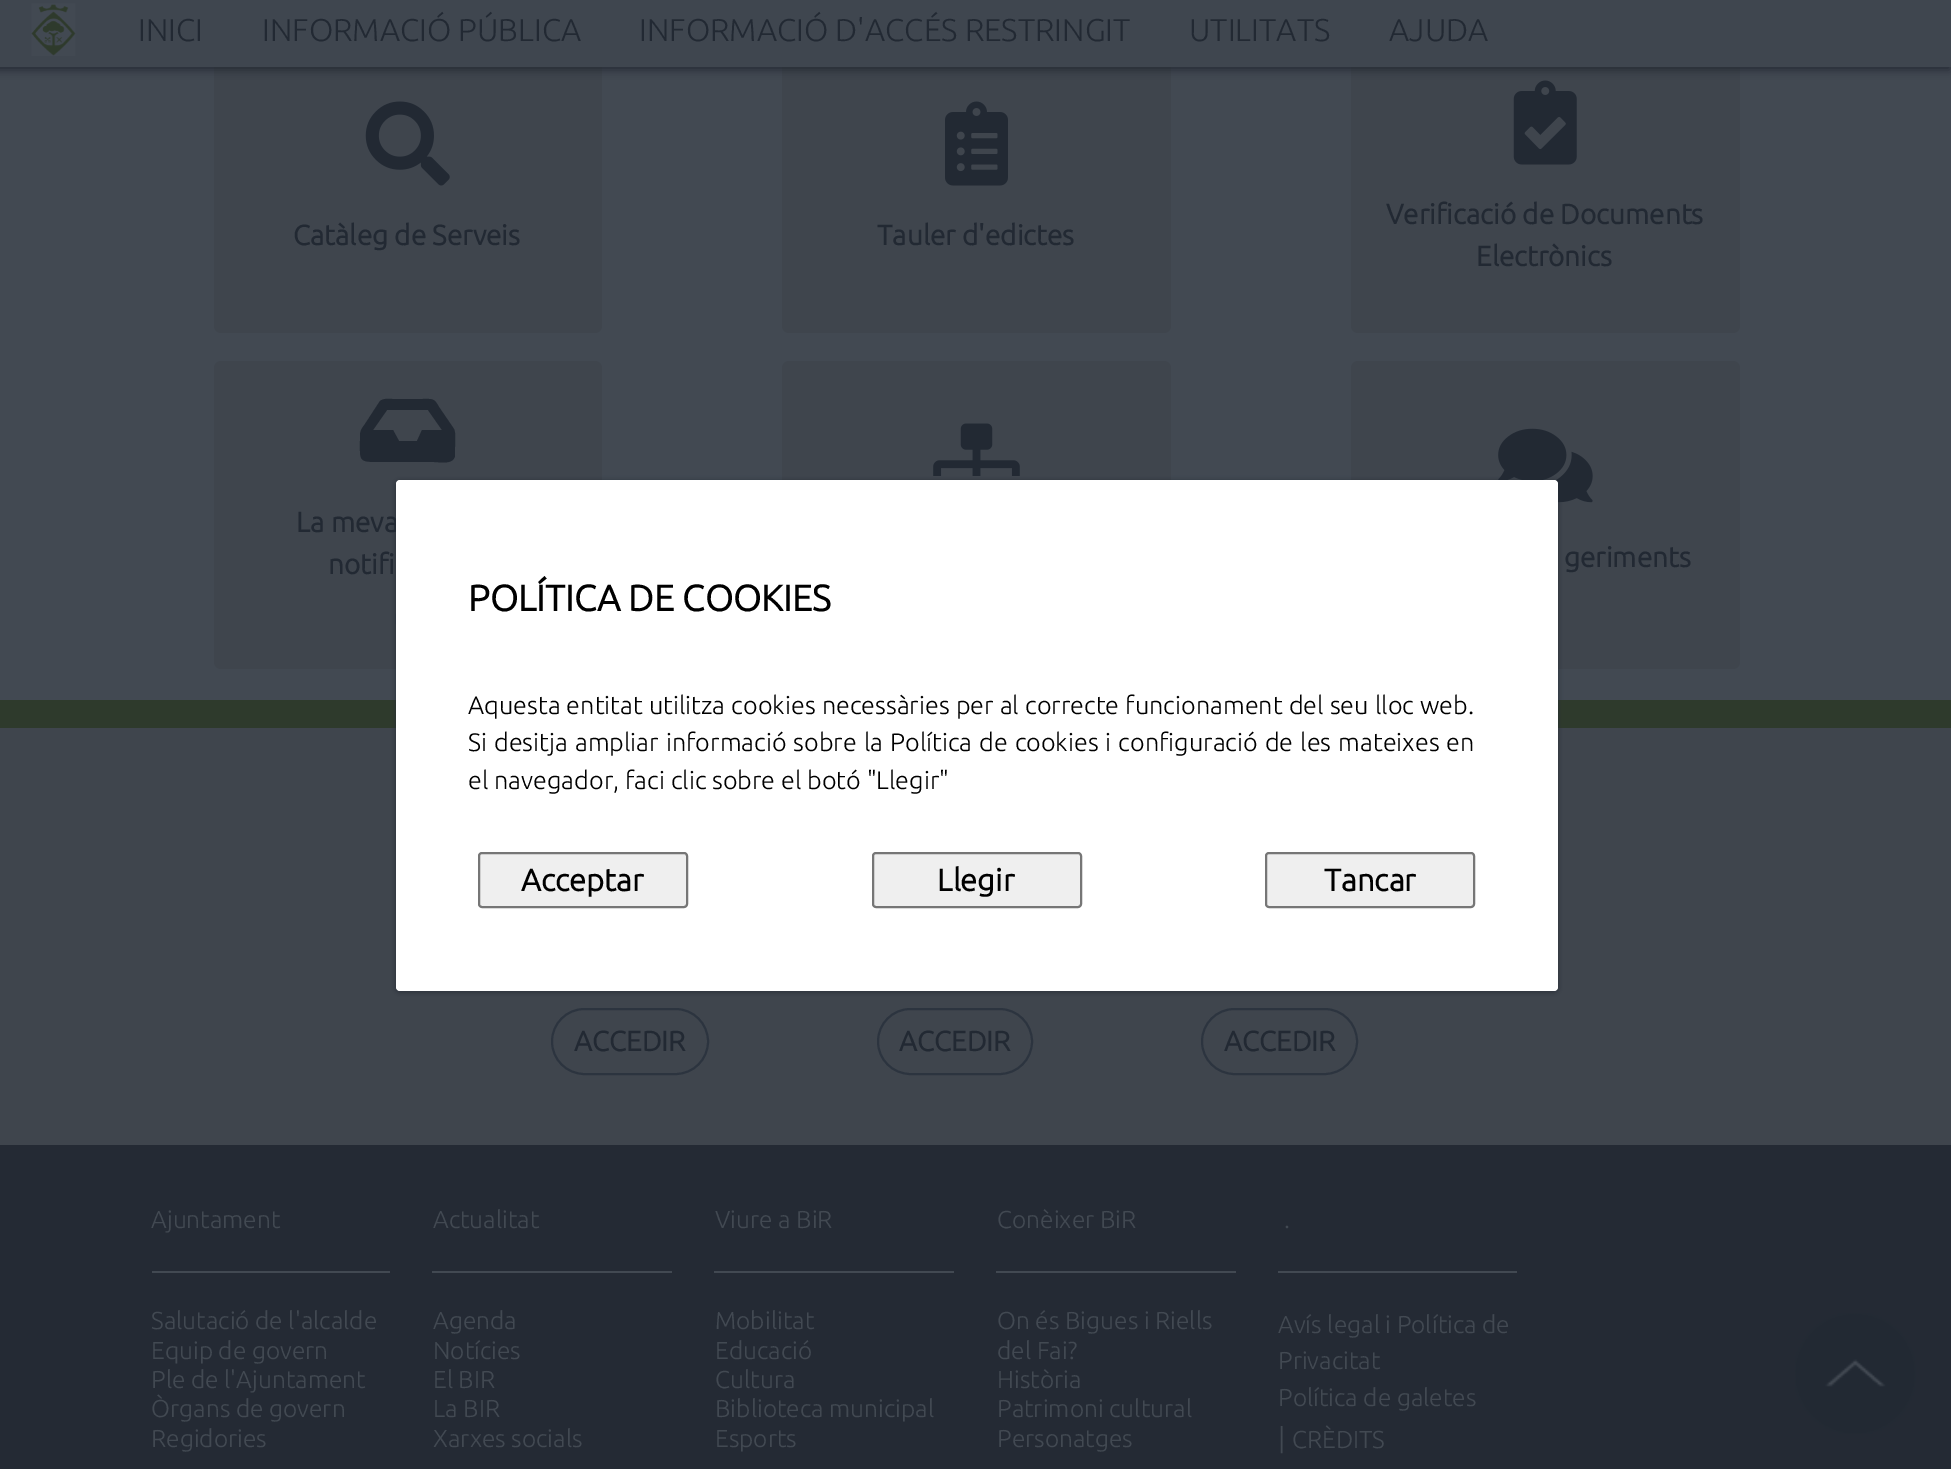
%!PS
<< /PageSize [1951 1469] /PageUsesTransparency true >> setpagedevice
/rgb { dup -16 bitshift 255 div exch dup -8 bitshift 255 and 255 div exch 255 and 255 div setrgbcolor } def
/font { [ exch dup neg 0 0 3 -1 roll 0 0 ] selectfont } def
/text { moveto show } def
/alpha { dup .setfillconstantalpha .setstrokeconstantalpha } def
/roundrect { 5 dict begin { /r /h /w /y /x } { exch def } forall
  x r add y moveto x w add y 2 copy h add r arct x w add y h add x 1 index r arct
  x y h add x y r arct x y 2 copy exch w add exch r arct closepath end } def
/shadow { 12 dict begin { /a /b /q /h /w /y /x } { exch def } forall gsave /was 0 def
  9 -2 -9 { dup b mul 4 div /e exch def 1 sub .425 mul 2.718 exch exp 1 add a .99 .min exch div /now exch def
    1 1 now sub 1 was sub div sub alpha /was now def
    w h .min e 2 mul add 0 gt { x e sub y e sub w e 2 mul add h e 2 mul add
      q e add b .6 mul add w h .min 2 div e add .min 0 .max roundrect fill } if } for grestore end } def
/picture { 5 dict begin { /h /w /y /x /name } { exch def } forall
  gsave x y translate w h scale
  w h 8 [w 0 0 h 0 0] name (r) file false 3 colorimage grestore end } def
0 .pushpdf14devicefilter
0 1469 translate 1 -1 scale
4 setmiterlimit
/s1 { /Ubuntu-Light 31.5 font 16#222933 rgb } def
/s2 { /Ubuntu-Bold 28 font 16#222933 rgb } def
/s3 { /Ubuntu-Bold 36.5 font 16#000000 rgb } def
/s4 { /Ubuntu-Light 25.2 font 16#000000 rgb } def
/s5 { /Ubuntu-Bold 31 font 16#000000 rgb } def
/s6 { /Ubuntu-Light 24.5 font 16#424952 rgb } def
/s7 { /Ubuntu-Light 28 font 16#424952 rgb } def
16#424952 rgb
0 0 1951 1469 rectfill
16#3F454D rgb
214 53 388 280 7 roundrect fill
782 53 389 280 7 roundrect fill
1351 53 389 280 7 roundrect fill
(pic4.raw) 1513 80 64 85 picture
16#242A34 rgb
-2 4 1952 66 0 4.5 1 shadow
16#3F464F rgb
0 0 1951 67 rectfill
(pic1.raw) 31 3 45 53 picture
s1
(INICI) 138 41 text
(INFORMACIÓ PÚBLICA) 262 41 text
(INFORMACIÓ D'ACCÉS RESTRINGIT) 639 41 text
(UTILITATS) 1189 41 text
(AJUDA) 1389 41 text
(pic2.raw) 365 101 85 85 picture
s2
(Catàleg de Serveis) 293 245 text
(pic3.raw) 945 101 63 85 picture
(Tauler d'edictes) 877 245 text
(Verificació de Documents) 1386 224 text
(Electrònics) 1476 266 text
16#3F454D rgb
214 361 388 308 7 roundrect fill
16#222933 rgb
454 429 moveto 456 433 455 443 455 447 curveto 455 456 lineto 453 465 440 462 434 462 curveto 382 462 lineto 358 462 360 462 360 440 curveto 360 431 360 431 365 424 curveto 380 401 lineto 384 398 388 399 393 399 curveto 422 399 lineto 433 399 434 398 439 407 curveto closepath 387 410 moveto 373 430 lineto 393 430 lineto 399 441 lineto 417 441 lineto 422 430 lineto 442 430 lineto 428 410 lineto closepath fill
(La meva) 296 532 text
(notifi) 328 574 text
(pic5.raw) 395 613 1 12 picture
16#3F454D rgb
782 361 389 308 7 roundrect fill
(pic6.raw) 933 423 87 53 picture
1351 361 389 308 7 roundrect fill
(pic7.raw) 1498 428 95 75 picture
s2
(geriments) 1564 567 text
16#2E3A2C rgb
0 700 1951 28 rectfill
16#3F454D rgb
0 728 1951 417 rectfill
16#2C343F rgb
2 setlinewidth
552 1009 156 65 32.5 roundrect stroke
s2
(ACCEDIR) 574 1051 text
16#2C343F rgb
878 1009 154 65 32.5 roundrect stroke
s2
(ACCEDIR) 899 1051 text
16#2C343F rgb
1202 1009 155 65 32.5 roundrect stroke
s2
(ACCEDIR) 1224 1051 text
16#212934 rgb
396 481 1162 511 4 2.5 0.75 shadow
16#FFFFFF rgb
396 480 1162 511 4 roundrect fill
s3
(POLÍTICA DE COOKIES) 468 611 text
/Ubuntu-Light 25.2 font
468 714 moveto 0.4 0 32 (Aquesta entitat utilitza cookies necessàries per al correcte funcionament del seu lloc web.) widthshow
468 751 moveto 1.25 0 32 (Si desitja ampliar informació sobre la Política de cookies i configuració de les mateixes en) widthshow
(el navegador, faci clic sobre el botó "Llegir") 468 789 text
16#EFEFEF rgb
479 853 208 54 3 roundrect gsave fill grestore
16#767676 rgb
stroke
s5
(Acceptar) 521 891 text
16#EFEFEF rgb
873 853 208 54 3 roundrect gsave fill grestore
16#767676 rgb
stroke
s5
(Llegir) 937 891 text
16#EFEFEF rgb
1266 853 208 54 3 roundrect gsave fill grestore
16#767676 rgb
stroke
s5
(Tancar) 1324 891 text
16#242A34 rgb
0 1145 1951 324 rectfill
s6
(Ajuntament) 151 1228 text
152 1271 238 2 rectfill
(Salutació de l'alcalde) 151 1329 text
(Equip de govern) 151 1359 text
(Ple de l'Ajuntament) 151 1388 text
(Òrgans de govern) 151 1417 text
(Regidories) 151 1447 text
(Actualitat) 433 1228 text
432 1271 240 2 rectfill
(Agenda) 433 1329 text
(Notícies) 433 1359 text
(El BIR) 433 1388 text
(La BIR) 433 1417 text
(Xarxes socials) 433 1447 text
(Viure a BiR) 715 1228 text
714 1271 240 2 rectfill
(Mobilitat) 715 1329 text
(Educació) 715 1359 text
(Cultura) 715 1388 text
(Biblioteca municipal) 715 1417 text
(Esports) 715 1447 text
(Conèixer BiR) 997 1228 text
996 1271 240 2 rectfill
(On és Bigues i Riells) 997 1329 text
(del Fai?) 997 1359 text
(Història) 997 1388 text
(Patrimoni cultural) 997 1417 text
(Personatges) 997 1447 text
(.) 1284 1228 text
1278 1271 239 2 rectfill
(Avís legal i Política de) 1278 1333 text
(Privacitat) 1278 1369 text
(Política de galetes) 1278 1406 text
s7
(|) 1278 1448 text
s6
(CRÈDITS) 1292 1448 text
(pic8.raw) 1795 1313 121 121 picture
.poppdf14devicefilter showpage
